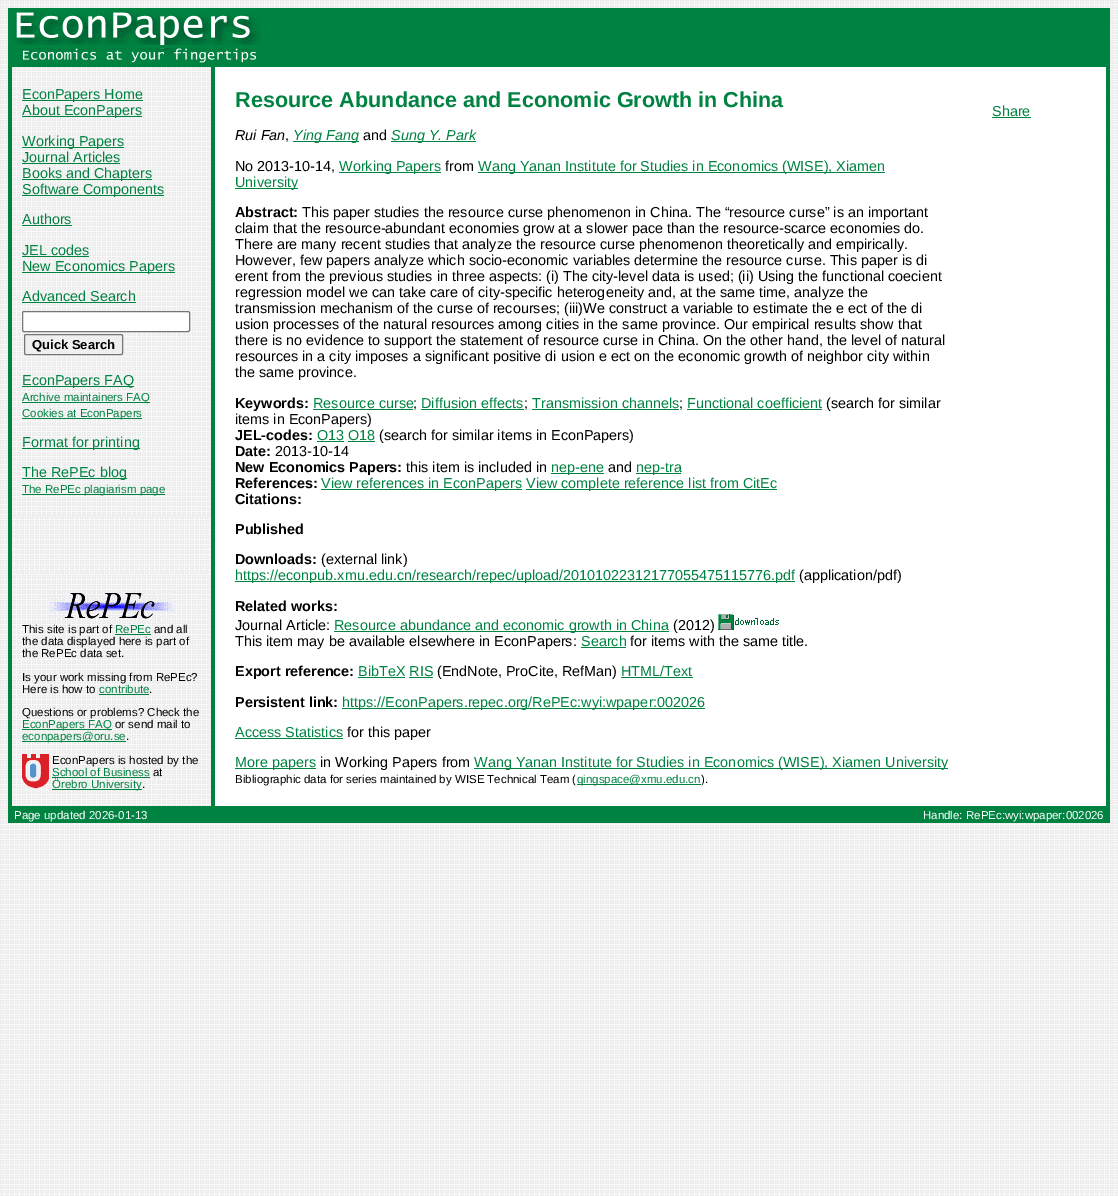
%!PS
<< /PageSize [1118 1196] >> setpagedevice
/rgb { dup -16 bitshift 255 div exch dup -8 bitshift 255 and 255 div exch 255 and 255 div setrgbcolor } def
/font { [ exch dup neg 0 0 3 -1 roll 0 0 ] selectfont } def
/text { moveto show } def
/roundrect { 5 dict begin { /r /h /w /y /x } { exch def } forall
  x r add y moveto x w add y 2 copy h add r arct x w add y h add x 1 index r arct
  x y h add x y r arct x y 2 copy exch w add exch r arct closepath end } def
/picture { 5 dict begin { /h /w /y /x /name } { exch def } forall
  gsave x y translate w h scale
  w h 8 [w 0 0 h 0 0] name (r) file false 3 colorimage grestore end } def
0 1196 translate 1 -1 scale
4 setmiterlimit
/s1 { /LiberationSans-Regular 14.4 font 16#008241 rgb } def
/s2 { /LiberationSans-Bold 13 font 16#000000 rgb } def
/s3 { /LiberationSans-Regular 11.5 font 16#008241 rgb } def
/s4 { /LiberationSans-Bold 21.6 font 16#008241 rgb } def
/s5 { /LiberationSans-Italic 14.4 font 16#000000 rgb } def
/s6 { /LiberationSans-Regular 14.4 font 16#000000 rgb } def
/s7 { /LiberationSans-Italic 14.4 font 16#008241 rgb } def
/s8 { /LiberationSans-Bold 14.4 font 16#000000 rgb } def
/s9 { /LiberationSans-Regular 11.5 font 16#000000 rgb } def
/s10 { /LiberationSans-Regular 11.5 font 16#FFFFFF rgb } def
16#FFFFFF rgb
0 0 1118 1196 rectfill
(pic1.raw) 0 0 1118 1196 picture
16#008241 rgb
8 8 4 815 rectfill
12 8 1094 40 rectfill
(pic2.raw) 13 10 249 35 picture
1106 8 4 815 rectfill
12 48 1094 19 rectfill
(pic3.raw) 18 48 239 15 picture
(pic4.raw) 12 67 199 449 picture
22 100 121 1 rectfill
s1
(EconPapers Home) 22 99 text
22 116 120 1 rectfill
(About EconPapers) 22 115 text
22 147 102 1 rectfill
(Working Papers) 22 146 text
(Journal Articles) 22 162 text
22 163 98 1 rectfill
22 179 130 1 rectfill
(Books and Chapters) 22 178 text
22 195 142 1 rectfill
(Software Components) 22 194 text
(Authors) 22 224 text
22 225 50 1 rectfill
(JEL codes) 22 255 text
22 256 67 1 rectfill
22 272 153 1 rectfill
(New Economics Papers) 22 271 text
(Advanced Search) 22 301 text
22 302 114 1 rectfill
16#FFFFFF rgb
22.5 311.5 167 20 1.5 roundrect gsave fill grestore
16#767676 rgb
stroke
16#EFEFEF rgb
24.5 334.5 98 20 1.5 roundrect gsave fill grestore
16#767676 rgb
stroke
s2
(Quick Search) 32 349 text
16#008241 rgb
22 386 112 1 rectfill
s1
(EconPapers FAQ) 22 385 text
22 402 128 1 rectfill
s3
(Archive maintainers FAQ) 22 401 text
22 418 120 1 rectfill
(Cookies at EconPapers) 22 417 text
22 448 118 1 rectfill
s1
(Format for printing) 22 447 text
22 478 105 1 rectfill
(The RePEc blog) 22 477 text
22 494 143 1 rectfill
s3
(The RePEc plagiarism page) 22 493 text
211 67 4 739 rectfill
16#FFFFFF rgb
215 67 891 739 rectfill
s4
(Resource Abundance and Economic Growth in China) 235 107 text
s5
(Rui Fan) 235 140 text
s6
(,) 285 140 text
16#008241 rgb
293 141 66 1 rectfill
s7
(Ying Fang) 293 140 text
s6
(and) 363 140 text
16#008241 rgb
391 141 85 1 rectfill
s7
(Sung Y. Park) 391 140 text
s6
(No 2013-10-14,) 235 171 text
16#008241 rgb
339 172 102 1 rectfill
(Working Papers) 339 171 text
s6
(from) 445 171 text
16#008241 rgb
478 172 407 1 rectfill
(Wang Yanan Institute for Studies in Economics \(WISE\), Xiamen) 478 171 text
235 188 63 1 rectfill
(University) 235 187 text
s8
(Abstract:) 235 217 text
s6
(This paper studies the resource curse phenomenon in China. The “resource curse” is an important) 302 217 text
(claim that the resource-abundant economies grow at a slower pace than the resource-scarce economies do.) 235 233 text
(There are many recent studies that analyze the resource curse phenomenon theoretically and empirically.) 235 249 text
(However, few papers analyze which socio-economic variables determine the resource curse. This paper is di) 235 265 text
(erent from the previous studies in three aspects: \(i\) The city-level data is used; \(ii\) Using the functional coecient) 235 281 text
(regression model we can take care of city-specific heterogeneity and, at the same time, analyze the) 235 297 text
(transmission mechanism of the curse of recourses; \(iii\)We construct a variable to estimate the e ect of the di) 235 313 text
(usion processes of the natural resources among cities in the same province. Our empirical results show that) 235 329 text
(there is no evidence to support the statement of resource curse in China. On the other hand, the level of natural) 235 345 text
(resources in a city imposes a significant positive di usion e ect on the economic growth of neighbor city within) 235 361 text
(the same province.) 235 377 text
s8
(Keywords:) 235 408 text
s1
(Resource curse) 313 408 text
313 409 100 1 rectfill
s6
(;) 413 408 text
s1
(Diffusion effects) 421 408 text
421 409 103 1 rectfill
s6
(;) 524 408 text
s1
(Transmission channels) 532 408 text
532 409 147 1 rectfill
s6
(;) 679 408 text
s1
(Functional coefficient) 687 408 text
687 409 135 1 rectfill
s6
(\(search for similar) 826 408 text
(items in EconPapers\)) 235 424 text
s8
(JEL-codes:) 235 440 text
s1
(O13 O18) 317 440 text
317 441 27 1 rectfill
s6
(\(search for similar items in EconPapers\)) 379 440 text
16#008241 rgb
348 441 27 1 rectfill
s8
(Date:) 235 456 text
s6
(2013-10-14) 275 456 text
s8
(New Economics Papers:) 235 472 text
s6
(this item is included in) 406 472 text
16#008241 rgb
551 473 53 1 rectfill
(nep-ene) 551 472 text
s6
(and) 608 472 text
16#008241 rgb
636 473 45 1 rectfill
(nep-tra) 636 472 text
s8
(References:) 235 488 text
16#008241 rgb
321 489 201 1 rectfill
s1
(View references in EconPapers) 321 488 text
526 489 251 1 rectfill
(View complete reference list from CitEc) 526 488 text
s8
(Citations:) 235 504 text
(Published) 235 534 text
(Downloads:) 235 564 text
s6
(\(external link\)) 321 564 text
16#008241 rgb
235 581 560 1 rectfill
(https://econpub.xmu.edu.cn/research/repec/upload/20101022312177055475115776.pdf) 235 580 text
s6
(\(application/pdf\)) 799 580 text
s8
(Related works:) 235 611 text
s6
(Journal Article:) 235 630 text
16#008241 rgb
334 631 335 1 rectfill
(Resource abundance and economic growth in China) 334 630 text
s6
(\(2012\)) 673 630 text
(pic5.raw) 718 614 61 16 picture
(This item may be available elsewhere in EconPapers:) 235 646 text
s1
(Search) 581 646 text
581 647 45 1 rectfill
s6
(for items with the same title.) 630 646 text
s8
(Export reference:) 235 676 text
s1
(BibTeX RIS) 358 676 text
358 677 47 1 rectfill
s6
(\(EndNote, ProCite, RefMan\)) 437 676 text
s1
(HTML/Text) 621 676 text
621 677 72 1 rectfill
409 677 24 1 rectfill
s8
(Persistent link:) 235 707 text
16#008241 rgb
342 708 363 1 rectfill
s1
(https://EconPapers.repec.org/RePEc:wyi:wpaper:002026) 342 707 text
(Access Statistics) 235 737 text
235 738 108 1 rectfill
s6
(for this paper) 347 737 text
16#008241 rgb
235 768 81 1 rectfill
(More papers) 235 767 text
s6
(in Working Papers from) 320 767 text
16#008241 rgb
474 768 474 1 rectfill
(Wang Yanan Institute for Studies in Economics \(WISE\), Xiamen University) 474 767 text
s9
(Bibliographic data for series maintained by WISE Technical Team \() 235 783 text
16#008241 rgb
577 784 124 1 rectfill
(qingspace@xmu.edu.cn) 577 783 text
s9
(\).) 701 783 text
s1
(Share) 992 116 text
992 117 39 1 rectfill
(pic6.raw) 12 575 198 231 picture
(pic7.raw) 48 591 127 29 picture
s9
(This site is part of) 22 633 text
s3
(RePEc) 115 633 text
115 634 36 1 rectfill
s9
(and all) 154 633 text
(the data displayed here is part of) 22 645 text
(the RePEc data set.) 22 657 text
(Is your work missing from RePEc?) 22 681 text
(Here is how to) 22 693 text
s3
(contribute) 99 693 text
99 694 50 1 rectfill
s9
(.) 149 693 text
(Questions or problems? Check the) 22 716 text
16#008241 rgb
22 729 90 1 rectfill
(EconPapers FAQ) 22 728 text
s9
(or send mail to) 115 728 text
16#008241 rgb
22 741 104 1 rectfill
(econpapers@oru.se) 22 740 text
s9
(.) 126 740 text
(pic8.raw) 22 754 27 35 picture
(EconPapers is hosted by the) 52 764 text
s3
(School of Business) 52 776 text
52 777 98 1 rectfill
s9
(at) 153 776 text
16#008241 rgb
52 789 90 1 rectfill
(Örebro University) 52 788 text
s9
(.) 142 788 text
16#008241 rgb
12 806 1094 17 rectfill
s10
(Page updated 2026-01-13) 14 819 text
(Handle: RePEc:wyi:wpaper:002026) 923 819 text
showpage
